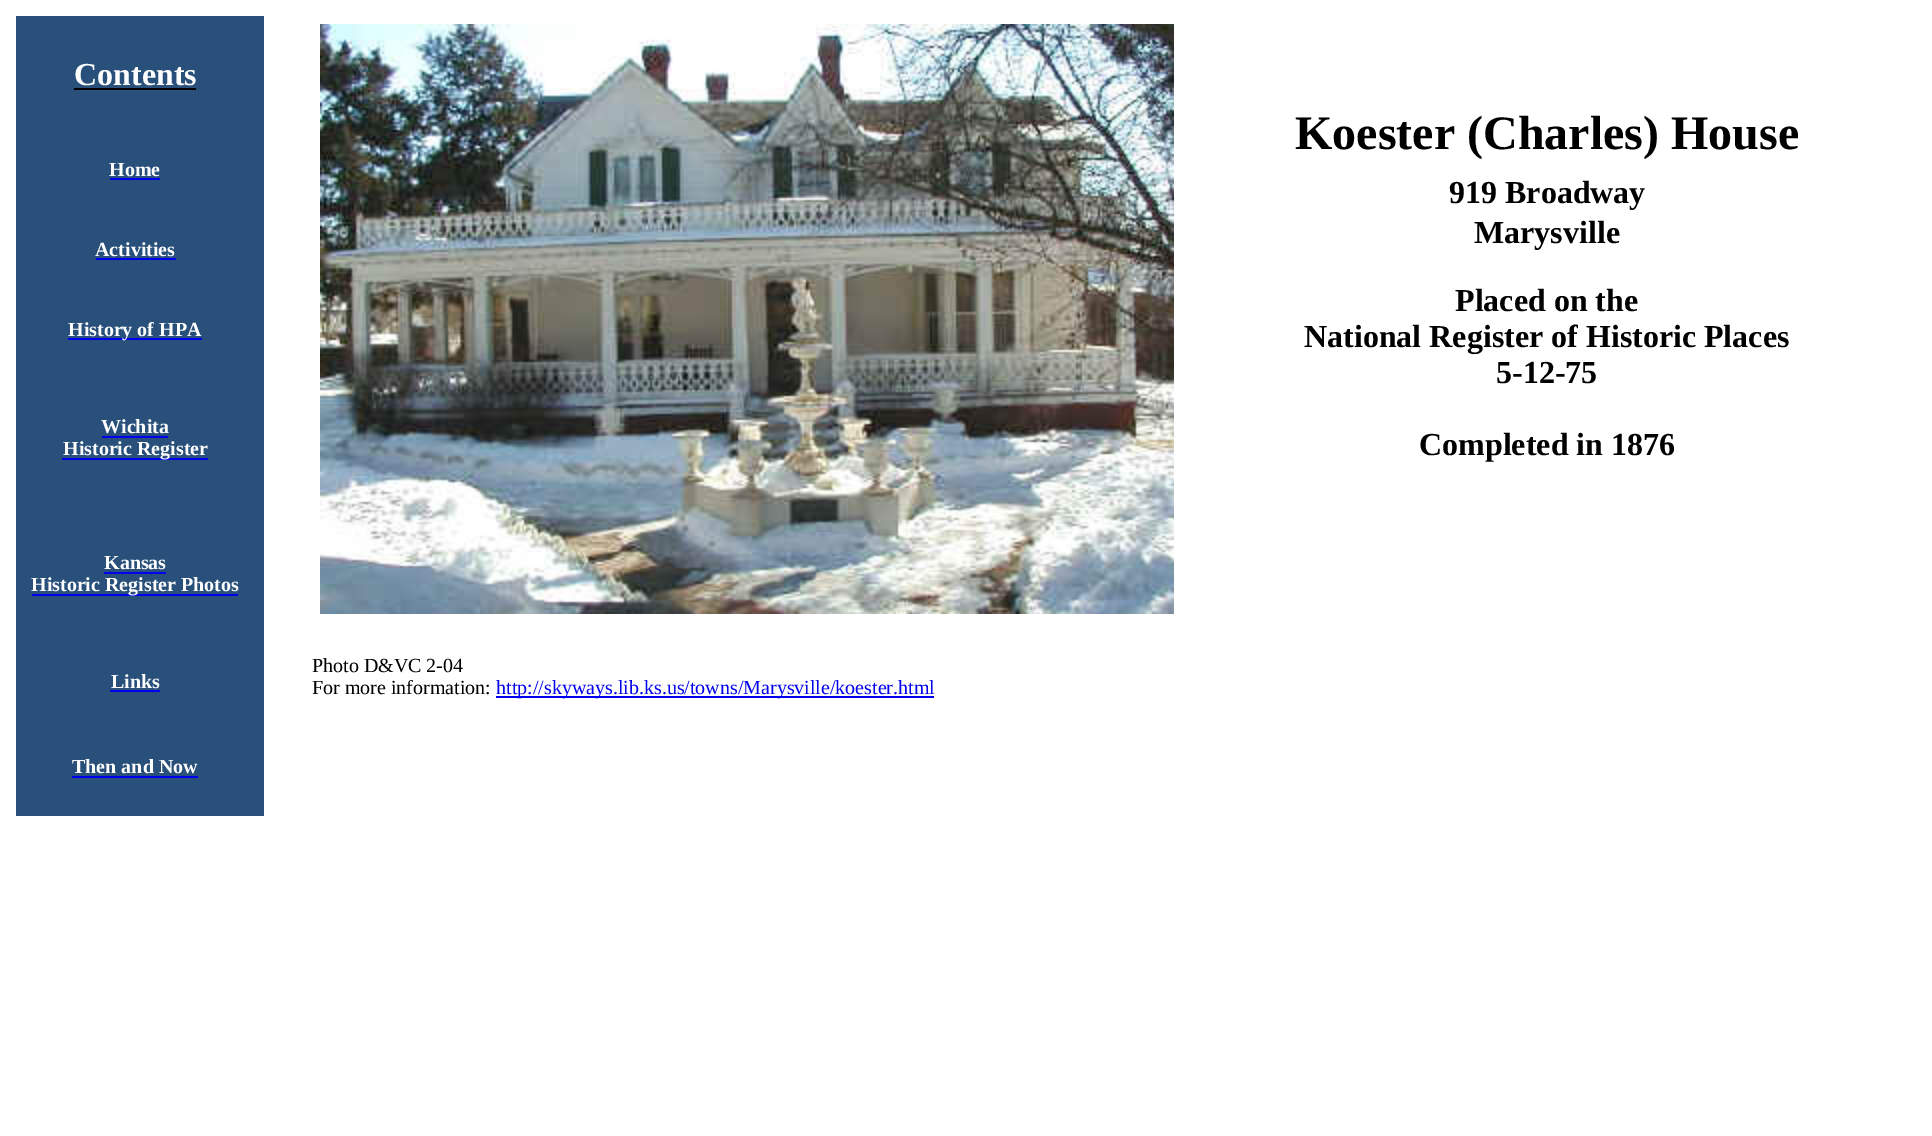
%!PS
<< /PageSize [1932 1136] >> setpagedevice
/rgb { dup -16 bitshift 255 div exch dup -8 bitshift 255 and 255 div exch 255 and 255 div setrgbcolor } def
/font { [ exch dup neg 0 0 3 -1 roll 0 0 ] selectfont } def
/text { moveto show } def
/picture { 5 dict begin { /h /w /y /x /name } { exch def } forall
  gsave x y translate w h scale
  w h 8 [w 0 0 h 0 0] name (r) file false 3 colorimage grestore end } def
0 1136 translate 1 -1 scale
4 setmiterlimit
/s1 { /LiberationSerif-Bold 32 font 16#FFFFFF rgb } def
/s2 { /LiberationSerif-Bold 20 font 16#FFFFFF rgb } def
/s3 { /LiberationSerif-Bold 48 font 16#000000 rgb } def
/s4 { /LiberationSerif-Bold 32 font 16#000000 rgb } def
/s5 { /LiberationSerif-Regular 20 font 16#000000 rgb } def
/s6 { /LiberationSerif-Regular 20 font 16#0000EE rgb } def
16#FFFFFF rgb
0 0 1932 1136 rectfill
16#28507A rgb
16 16 248 800 rectfill
s1
(Contents) 74 85 text
16#000000 rgb
74 88 122 2 rectfill
s2
(Home) 109 176 text
16#0000EE rgb
110 178 50 2 rectfill
s2
(Activities) 95 256 text
16#0000EE rgb
96 258 80 2 rectfill
68 338 134 2 rectfill
s2
(History of HPA) 68 336 text
(Wichita) 101 433 text
16#0000EE rgb
102 436 66 2 rectfill
62 458 146 2 rectfill
s2
(Historic Register) 63 455 text
(Kansas) 104 569 text
16#0000EE rgb
104 572 62 2 rectfill
32 594 206 2 rectfill
s2
(Historic Register Photos) 31 591 text
(Links) 111 688 text
16#0000EE rgb
110 690 50 2 rectfill
s2
(Then and Now) 72 773 text
16#0000EE rgb
72 776 126 2 rectfill
(pic1.raw) 320 24 854 590 picture
s3
(Koester \(Charles\) House) 1295 149 text
s4
(919 Broadway) 1449 203 text
(Marysville) 1474 243 text
(Placed on the) 1455 311 text
(National Register of Historic Places) 1304 347 text
(5-12-75) 1496 383 text
(Completed in 1876) 1419 455 text
s5
(Photo D&VC 2-04) 312 672 text
(For more information:) 312 694 text
16#0000EE rgb
496 696 438 2 rectfill
(http://skyways.lib.ks.us/towns/Marysville/koester.html) 496 694 text
showpage
